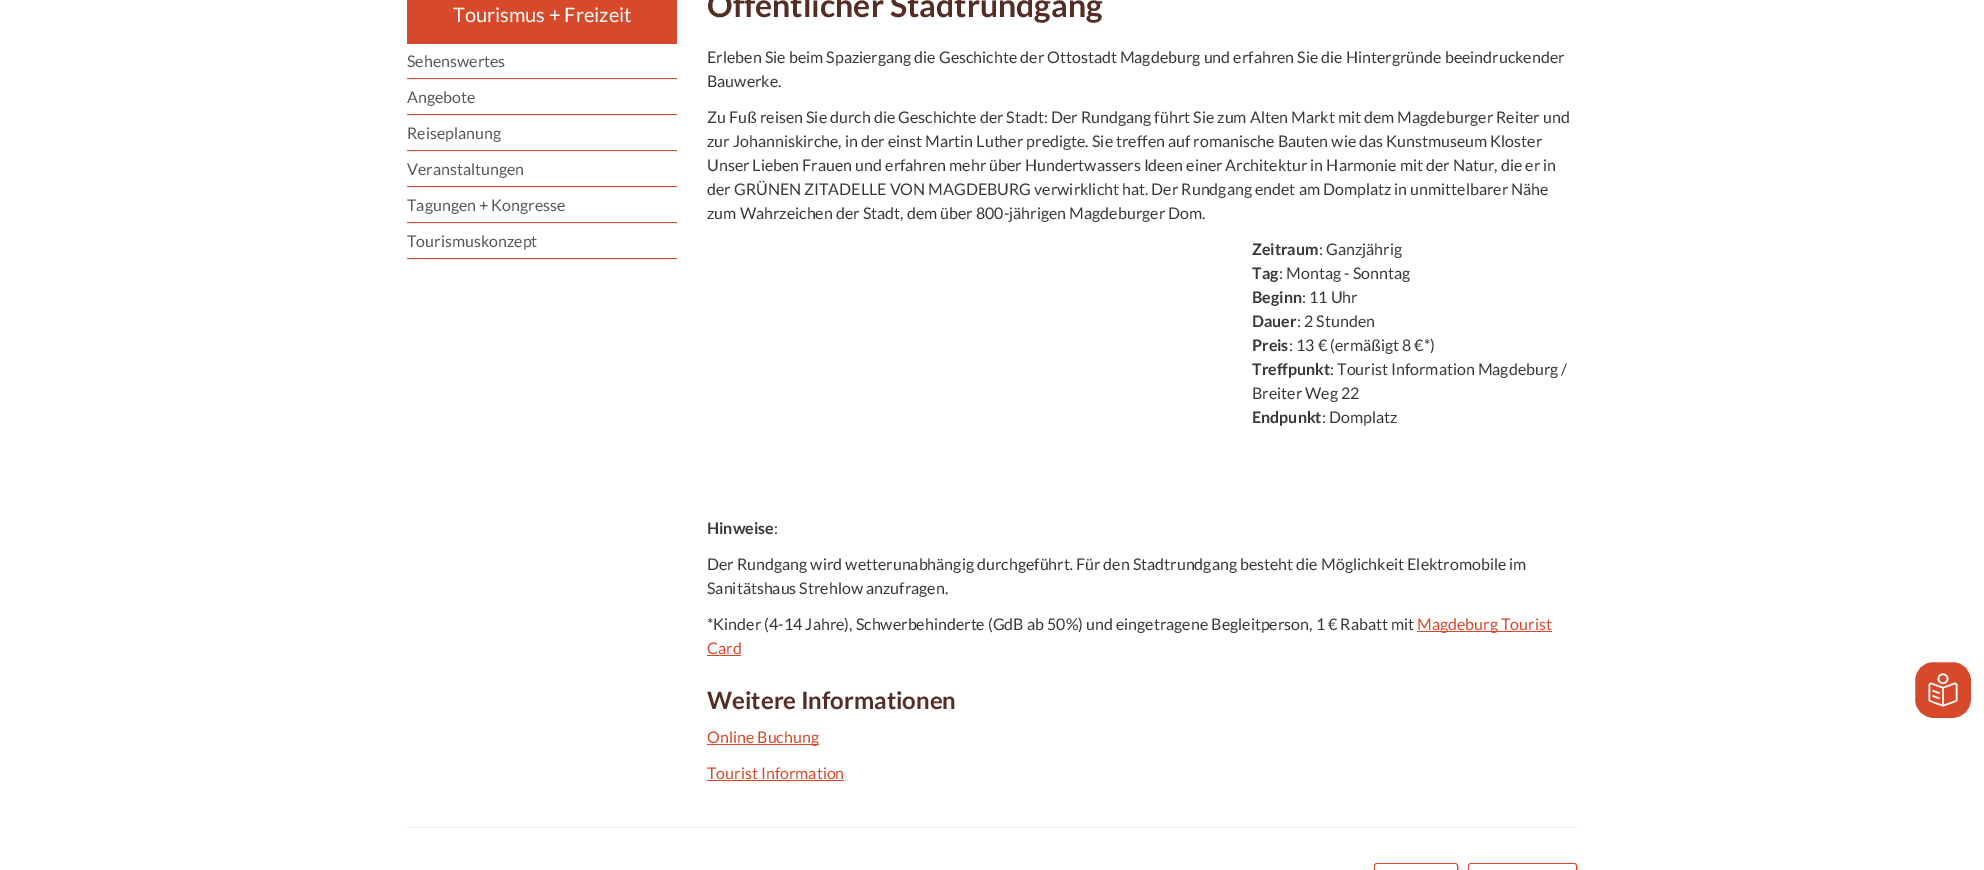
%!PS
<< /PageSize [1984 870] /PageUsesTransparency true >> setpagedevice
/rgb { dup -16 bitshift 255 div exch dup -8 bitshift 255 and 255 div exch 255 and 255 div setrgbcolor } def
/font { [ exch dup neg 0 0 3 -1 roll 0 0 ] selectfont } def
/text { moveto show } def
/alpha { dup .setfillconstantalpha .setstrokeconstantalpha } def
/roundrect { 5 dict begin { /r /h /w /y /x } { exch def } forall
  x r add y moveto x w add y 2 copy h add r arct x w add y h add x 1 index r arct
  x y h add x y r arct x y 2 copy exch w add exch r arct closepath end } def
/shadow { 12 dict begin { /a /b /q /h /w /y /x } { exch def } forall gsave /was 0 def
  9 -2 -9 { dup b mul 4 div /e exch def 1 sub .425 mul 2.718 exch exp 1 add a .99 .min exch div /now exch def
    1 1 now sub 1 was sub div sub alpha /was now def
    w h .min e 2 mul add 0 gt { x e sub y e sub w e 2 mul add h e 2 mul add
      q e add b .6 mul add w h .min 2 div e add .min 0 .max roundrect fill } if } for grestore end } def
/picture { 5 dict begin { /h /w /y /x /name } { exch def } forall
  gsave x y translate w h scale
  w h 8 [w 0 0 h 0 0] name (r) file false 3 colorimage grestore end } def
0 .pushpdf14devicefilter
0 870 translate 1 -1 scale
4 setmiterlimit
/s1 { /Lato-Regular 20 font 16#FFFFFF rgb } def
/s2 { /Lato-Regular 16 font 16#585858 rgb } def
/s3 { /Lato-Bold 32 font 16#542D24 rgb } def
/s4 { /Lato-Regular 16 font 16#383838 rgb } def
/s5 { /Lato-Bold 16 font 16#383838 rgb } def
/s6 { /Lato-Italic 16 font 16#383838 rgb } def
/s7 { /Lato-Regular 16 font 16#D6492A rgb } def
/s8 { /Lato-Bold 24 font 16#542D24 rgb } def
16#FFFFFF rgb
0 0 1984 870 rectfill
16#D6492A rgb
407 0 270 44 rectfill
s1
(Tourismus + Freizeit) 453 22 text
16#F2F2F2 rgb
407 79 270 1 rectfill
16#D6492A rgb
407 78 270 1 rectfill
s2
(Sehenswertes) 407 67 text
16#F2F2F2 rgb
407 115 270 1 rectfill
16#D6492A rgb
407 114 270 1 rectfill
s2
(Angebote) 407 103 text
16#F2F2F2 rgb
407 151 270 1 rectfill
16#D6492A rgb
407 150 270 1 rectfill
s2
(Reiseplanung) 407 139 text
16#F2F2F2 rgb
407 187 270 1 rectfill
16#D6492A rgb
407 186 270 1 rectfill
s2
(Veranstaltungen) 407 175 text
16#F2F2F2 rgb
407 223 270 1 rectfill
16#D6492A rgb
407 222 270 1 rectfill
s2
(Tagungen + Kongresse) 407 211 text
16#F2F2F2 rgb
407 259 270 1 rectfill
16#D6492A rgb
407 258 270 1 rectfill
s2
(Tourismuskonzept) 407 247 text
s3
(Öffentlicher Stadtrundgang) 707 17 text
s4
(Erleben Sie beim Spaziergang die Geschichte der Ottostadt Magdeburg und erfahren Sie die Hintergründe beeindruckender) 707 63 text
(Bauwerke.) 707 87 text
(Zu Fuß reisen Sie durch die Geschichte der Stadt: Der Rundgang führt Sie zum Alten Markt mit dem Magdeburger Reiter und) 707 123 text
(zur Johanniskirche, in der einst Martin Luther predigte. Sie treffen auf romanische Bauten wie das Kunstmuseum Kloster) 707 147 text
(Unser Lieben Frauen und erfahren mehr über Hundertwassers Ideen einer Architektur in Harmonie mit der Natur, die er in) 707 171 text
(der GRÜNEN ZITADELLE VON MAGDEBURG verwirklicht hat. Der Rundgang endet am Domplatz in unmittelbarer Nähe) 707 195 text
(zum Wahrzeichen der Stadt, dem über 800-jährigen Magdeburger Dom.) 707 219 text
s5
(Zeitraum) 1252 255 text
s4
(: Ganzjährig) 1319 255 text
s5
(Tag) 1252 279 text
s4
(: Montag - Sonntag) 1279 279 text
s5
(Beginn) 1252 303 text
s4
(: 11 Uhr) 1302 303 text
s5
(Dauer) 1252 327 text
s4
(: 2 Stunden) 1297 327 text
s5
(Preis) 1252 351 text
s4
(: 13 € \(ermäßigt 8 €*\)) 1289 351 text
s5
(Treffpunkt) 1252 375 text
s4
(: Tourist Information Magdeburg /) 1330 375 text
(Breiter Weg 22) 1252 399 text
s5
(Endpunkt) 1252 423 text
s4
(: Domplatz) 1322 423 text
s5
(Hinweise) 707 534 text
s4
(:) 774 534 text
(Der Rundgang wird wetterunabhängig durchgeführt) 707 570 text
s6
(.) 1070 570 text
s4
(Für den Stadtrundgang besteht die Möglichkeit Elektromobile im) 1076 570 text
(Sanitätshaus Strehlow anzufragen.) 707 594 text
(*Kinder \(4-14 Jahre\), Schwerbehinderte \(GdB ab 50%\) und eingetragene Begleitperson, 1 € Rabatt mit) 707 630 text
16#D6492A rgb
1417 631 135 1 rectfill
(Magdeburg Tourist) 1417 630 text
(Card) 707 654 text
707 655 34 1 rectfill
s8
(Weitere Informationen) 707 709 text
16#D6492A rgb
707 744 112 1 rectfill
s7
(Online Buchung) 707 743 text
(Tourist Information) 707 779 text
707 780 137 1 rectfill
16#F0F0F0 rgb
407 827 1170 1 rectfill
16#000000 rgb
1376 866 84 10 3 1 0.15 shadow
16#D6492A rgb
1374.5 863.5 83 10 2.5 roundrect stroke
16#FFFFFF rgb
1375 864 82 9 3 roundrect fill
16#000000 rgb
1470 866 109 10 3 1 0.15 shadow
16#D6492A rgb
1468.5 863.5 108 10 2.5 roundrect stroke
16#FFFFFF rgb
1469 864 107 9 3 roundrect fill
16#D6492A rgb
1914 661 58 58 19 roundrect gsave fill grestore
16#FFFFFF rgb
2 setlinewidth
stroke
(pic1.raw) 1928 673 30 34 picture
.poppdf14devicefilter showpage
